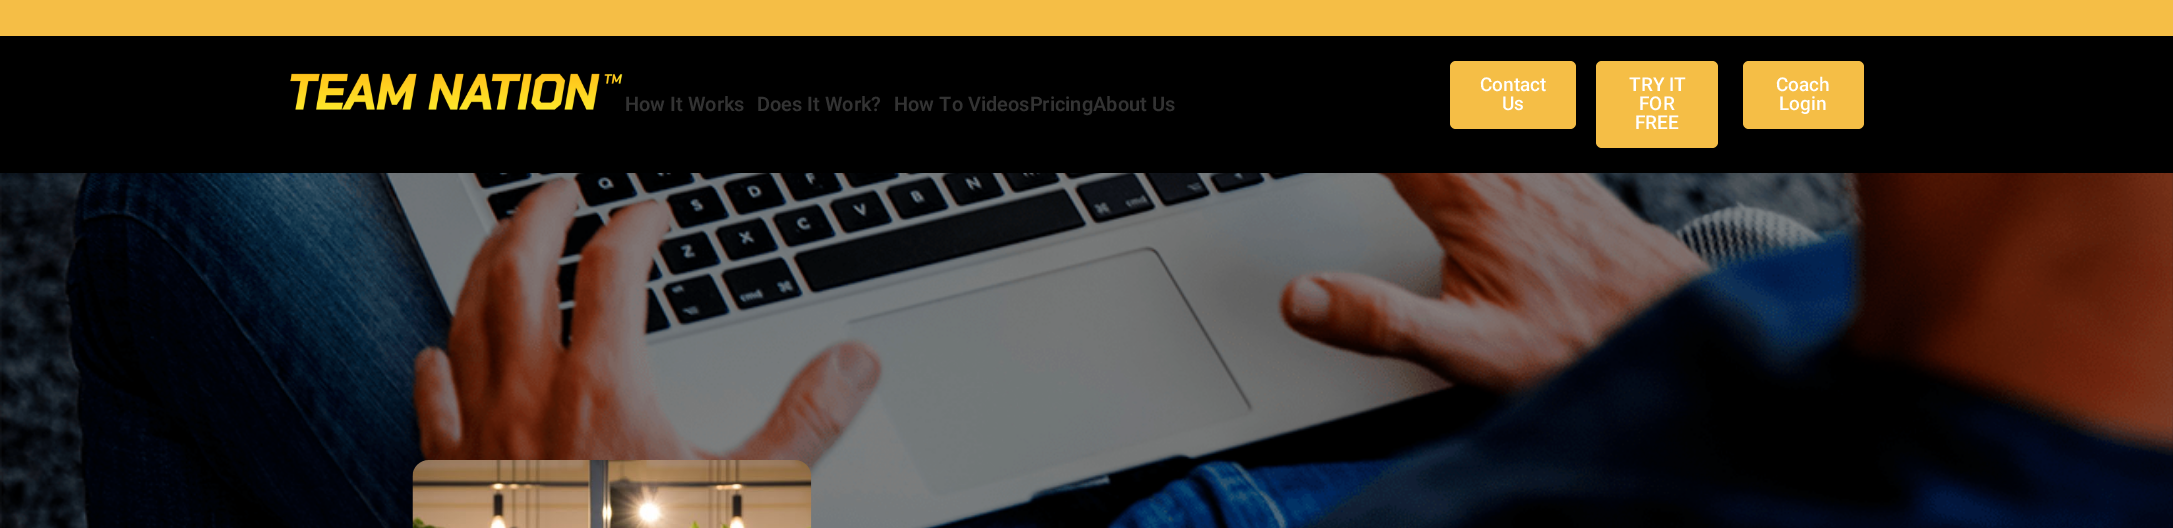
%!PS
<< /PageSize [2173 528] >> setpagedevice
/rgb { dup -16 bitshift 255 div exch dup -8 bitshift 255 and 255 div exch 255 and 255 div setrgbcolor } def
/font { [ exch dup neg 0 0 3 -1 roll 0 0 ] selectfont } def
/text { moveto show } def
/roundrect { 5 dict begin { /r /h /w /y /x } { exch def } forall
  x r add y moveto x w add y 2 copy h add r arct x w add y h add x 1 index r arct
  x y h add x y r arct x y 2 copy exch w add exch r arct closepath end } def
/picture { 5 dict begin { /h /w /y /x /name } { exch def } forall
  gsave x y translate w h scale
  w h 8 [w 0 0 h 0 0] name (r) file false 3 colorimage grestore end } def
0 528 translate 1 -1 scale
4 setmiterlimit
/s1 { /Roboto-SemiBold 20 font 16#333333 rgb } def
/s2 { /Roboto-Medium 19 font 16#FFFFFF rgb } def
16#000000 rgb
0 0 2173 528 rectfill
16#F5BE46 rgb
0 0 2173 36 rectfill
(pic1.raw) 290 73 333 37 picture
s1
(How It Works) 625 111 text
(Does It Work?) 757 111 text
(How To VideosPricingAbout Us) 894 111 text
16#F5BE46 rgb
1450 61 126 68 6 roundrect fill
s2
(Contact) 1480 91 text
(Us) 1502 110 text
16#F5BE46 rgb
1596 61 122 87 6 roundrect fill
s2
(TRY IT) 1629 91 text
(FOR) 1639 110 text
(FREE) 1635 129 text
16#F5BE46 rgb
1743 61 121 68 6 roundrect fill
s2
(Coach) 1776 91 text
(Login) 1779 110 text
(pic2.raw) 0 173 2173 355 picture
(pic3.raw) 412 460 400 68 picture
showpage
